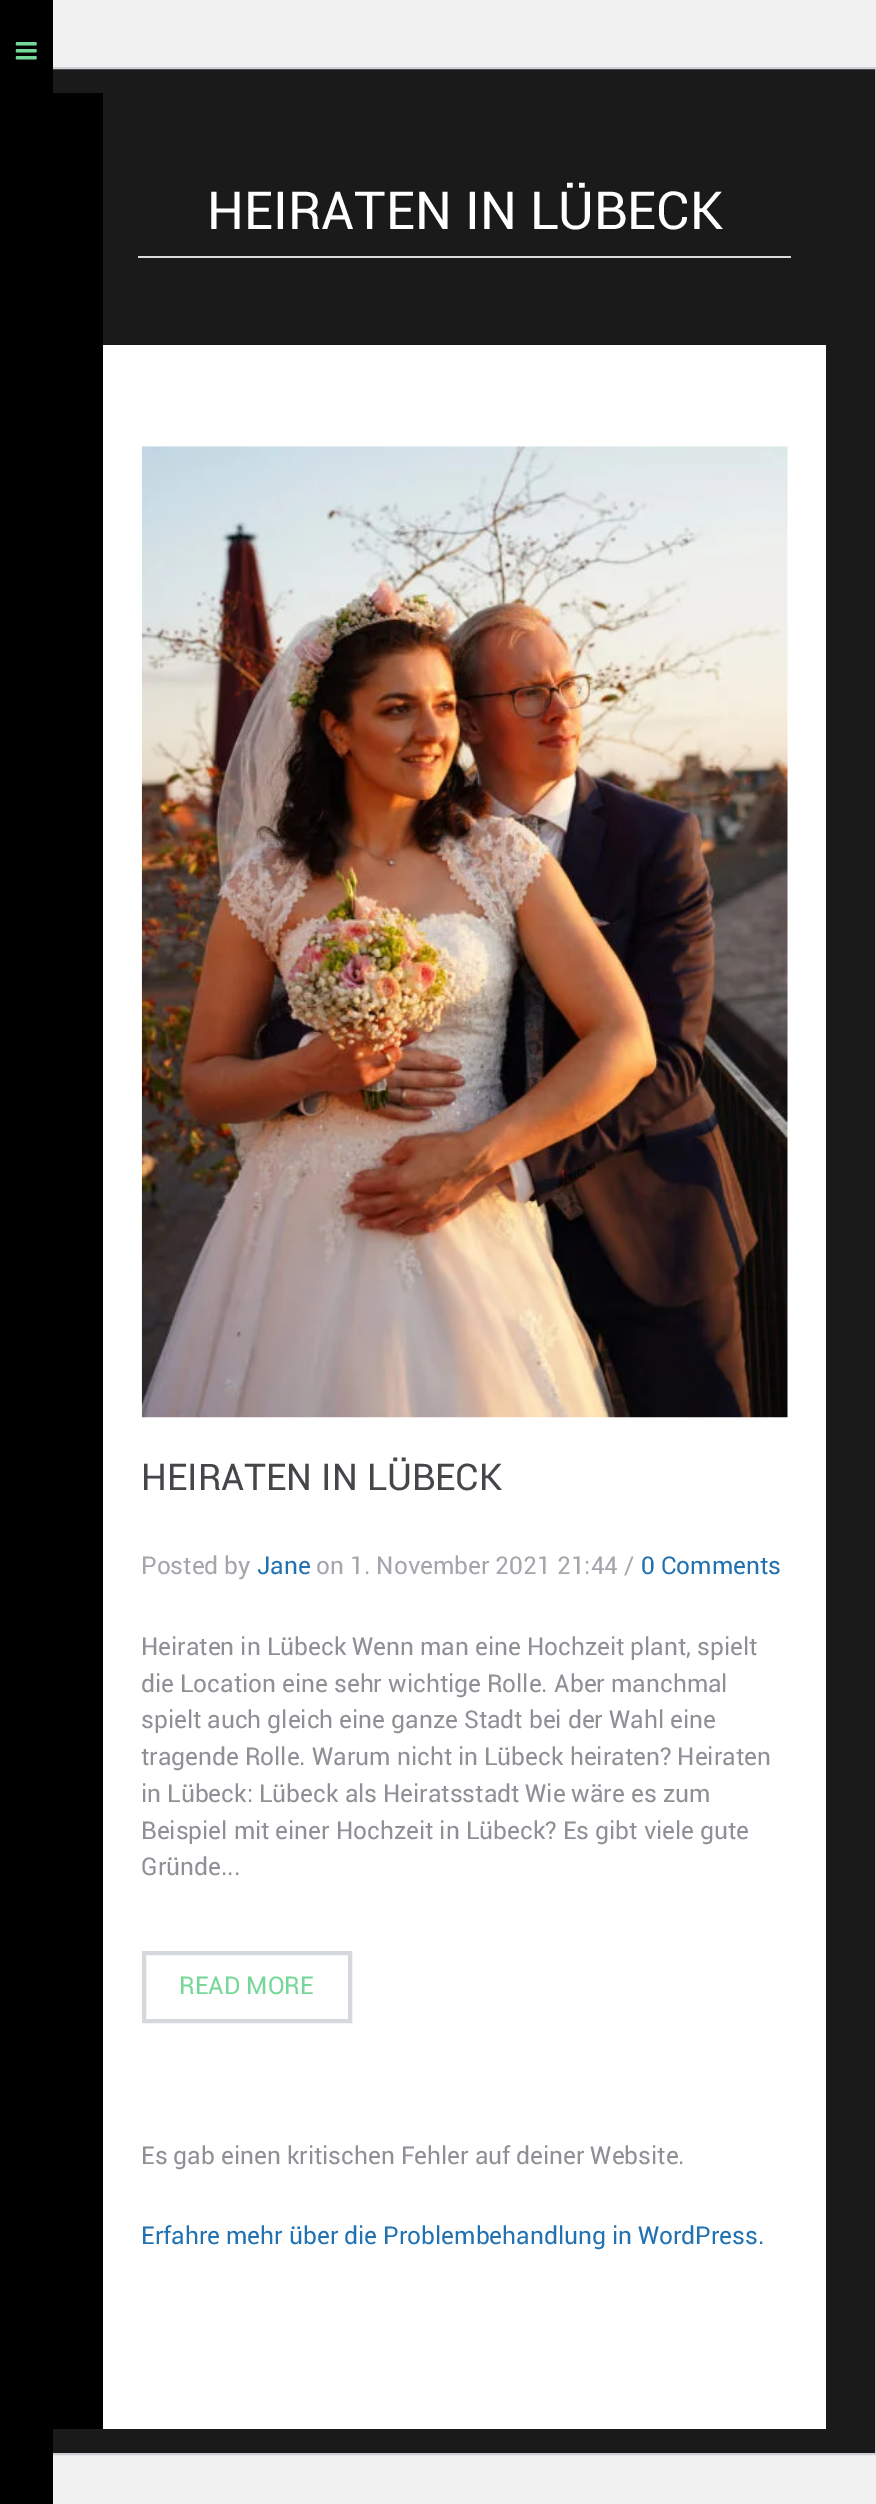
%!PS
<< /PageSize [876 2504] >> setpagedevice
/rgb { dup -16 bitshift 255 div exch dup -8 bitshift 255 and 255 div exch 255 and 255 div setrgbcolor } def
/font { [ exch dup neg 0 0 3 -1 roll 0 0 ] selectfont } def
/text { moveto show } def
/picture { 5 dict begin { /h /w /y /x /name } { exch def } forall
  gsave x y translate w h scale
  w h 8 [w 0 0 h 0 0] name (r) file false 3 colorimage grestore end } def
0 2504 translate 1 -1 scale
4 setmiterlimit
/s1 { /Roboto-Regular 52.5 font 16#FFFFFF rgb } def
/s2 { /Roboto-Regular 36.75 font 16#444649 rgb } def
/s3 { /Roboto-Regular 24.5 font 16#A4A6AC rgb } def
/s4 { /Roboto-Regular 24.5 font 16#2271B1 rgb } def
/s5 { /Roboto-Regular 24.5 font 16#8E9095 rgb } def
/s6 { /Roboto-Regular 24.5 font 16#76D898 rgb } def
16#F1F1F1 rgb
0 0 876 2504 rectfill
16#1A1A1A rgb
53 69 822 2384 rectfill
16#CCD0D4 rgb
2 setlinewidth
1 68 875 2386 rectstroke
16#000000 rgb
53 93 50 2336 rectfill
0 0 53 2504 rectfill
(pic1.raw) 15 42 22 18 picture
16#FFFFFF rgb
103 345 723 2084 rectfill
16#DADADA rgb
138 256 653 2 rectfill
s1
(HEIRATEN IN LÜBECK) 207 229 text
(pic2.raw) 141 446 647 972 picture
s2
(HEIRATEN IN LÜBECK) 141 1490 text
s3
(Posted by) 141 1574 text
s4
(Jane) 257 1574 text
s3
(on 1. November 2021 21:44 /) 316 1574 text
s4
(0 Comments) 641 1574 text
s5
(Heiraten in Lübeck Wenn man eine Hochzeit plant, spielt) 141 1655 text
(die Location eine sehr wichtige Rolle. Aber manchmal) 141 1692 text
(spielt auch gleich eine ganze Stadt bei der Wahl eine) 141 1728 text
(tragende Rolle. Warum nicht in Lübeck heiraten? Heiraten) 141 1765 text
(in Lübeck: Lübeck als Heiratsstadt Wie wäre es zum) 141 1802 text
(Beispiel mit einer Hochzeit in Lübeck? Es gibt viele gute) 141 1839 text
(Gründe...) 141 1875 text
16#D5D8DD rgb
4 setlinewidth
144 1953 206 68 rectstroke
s6
(READ MORE) 179 1994 text
s5
(Es gab einen kritischen Fehler auf deiner Website.) 141 2164 text
s4
(Erfahre mehr über die Problembehandlung in WordPress.) 141 2244 text
showpage
